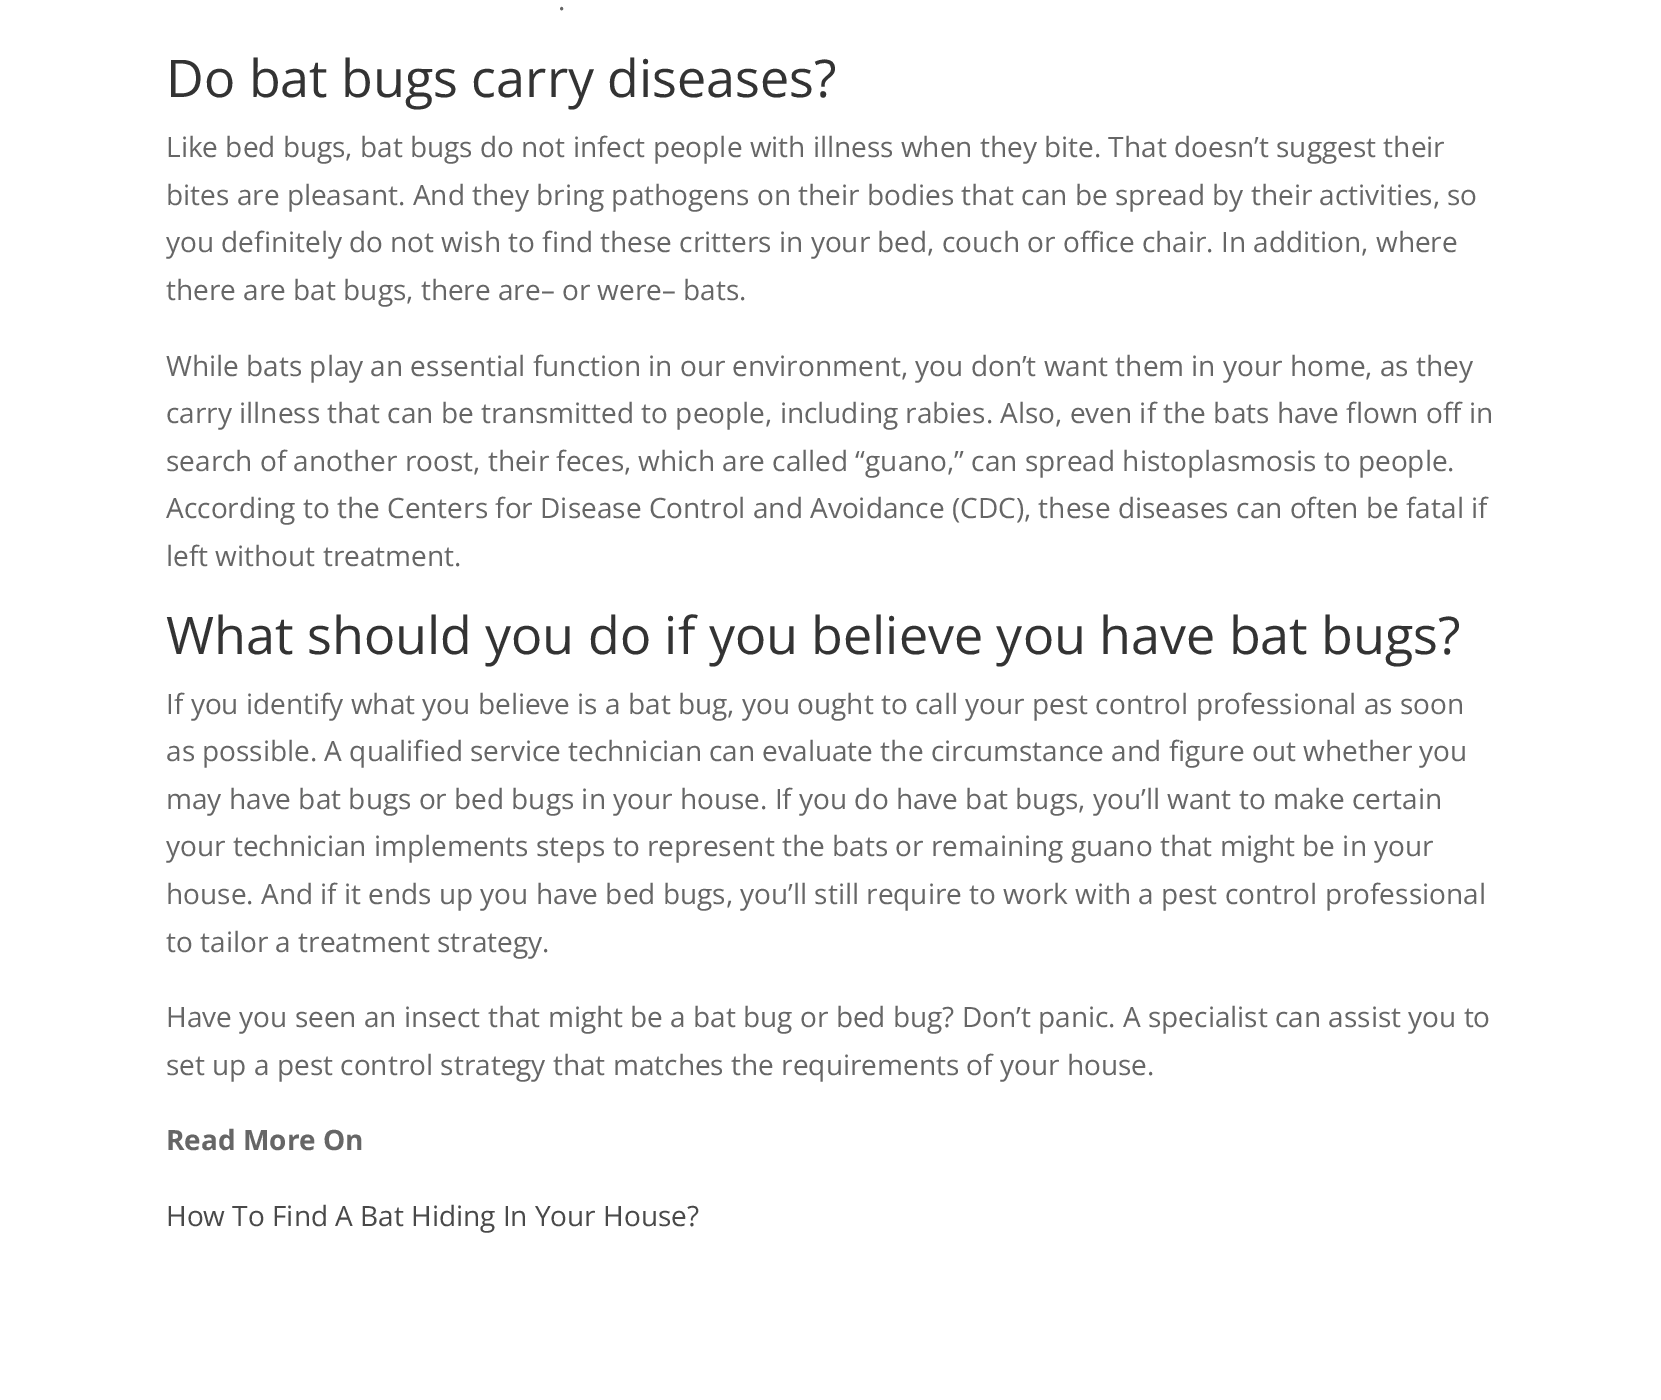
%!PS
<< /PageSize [1661 1400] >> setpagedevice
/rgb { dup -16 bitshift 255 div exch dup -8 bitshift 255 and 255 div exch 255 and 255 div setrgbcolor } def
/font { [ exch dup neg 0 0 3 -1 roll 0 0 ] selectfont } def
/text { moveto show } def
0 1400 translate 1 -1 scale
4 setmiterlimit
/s1 { /OpenSans-Regular 28 font 16#666666 rgb } def
/s2 { /OpenSans-Regular 52 font 16#333333 rgb } def
/s3 { /OpenSans-Bold 28 font 16#666666 rgb } def
/s4 { /OpenSans-Regular 28 font 16#494949 rgb } def
16#FFFFFF rgb
0 0 1661 1400 rectfill
s1
(.) 558 10 text
s2
(Do bat bugs carry diseases?) 166 97 text
s1
(Like bed bugs, bat bugs do not infect people with illness when they bite. That doesn’t suggest their) 166 157 text
(bites are pleasant. And they bring pathogens on their bodies that can be spread by their activities, so) 166 205 text
(you definitely do not wish to find these critters in your bed, couch or office chair. In addition, where) 166 252 text
(there are bat bugs, there are– or were– bats.) 166 300 text
(While bats play an essential function in our environment, you don’t want them in your home, as they) 166 376 text
(carry illness that can be transmitted to people, including rabies. Also, even if the bats have flown off in) 166 423 text
(search of another roost, their feces, which are called “guano,” can spread histoplasmosis to people.) 166 471 text
(According to the Centers for Disease Control and Avoidance \(CDC\), these diseases can often be fatal if) 166 518 text
(left without treatment.) 166 566 text
s2
(What should you do if you believe you have bat bugs?) 166 654 text
s1
(If you identify what you believe is a bat bug, you ought to call your pest control professional as soon) 166 714 text
(as possible. A qualified service technician can evaluate the circumstance and figure out whether you) 166 761 text
(may have bat bugs or bed bugs in your house. If you do have bat bugs, you’ll want to make certain) 166 809 text
(your technician implements steps to represent the bats or remaining guano that might be in your) 166 856 text
(house. And if it ends up you have bed bugs, you’ll still require to work with a pest control professional) 166 904 text
(to tailor a treatment strategy.) 166 952 text
(Have you seen an insect that might be a bat bug or bed bug? Don’t panic. A specialist can assist you to) 166 1027 text
(set up a pest control strategy that matches the requirements of your house.) 166 1075 text
s3
(Read More On) 166 1150 text
s4
(How To Find A Bat Hiding In Your House?) 166 1226 text
showpage
